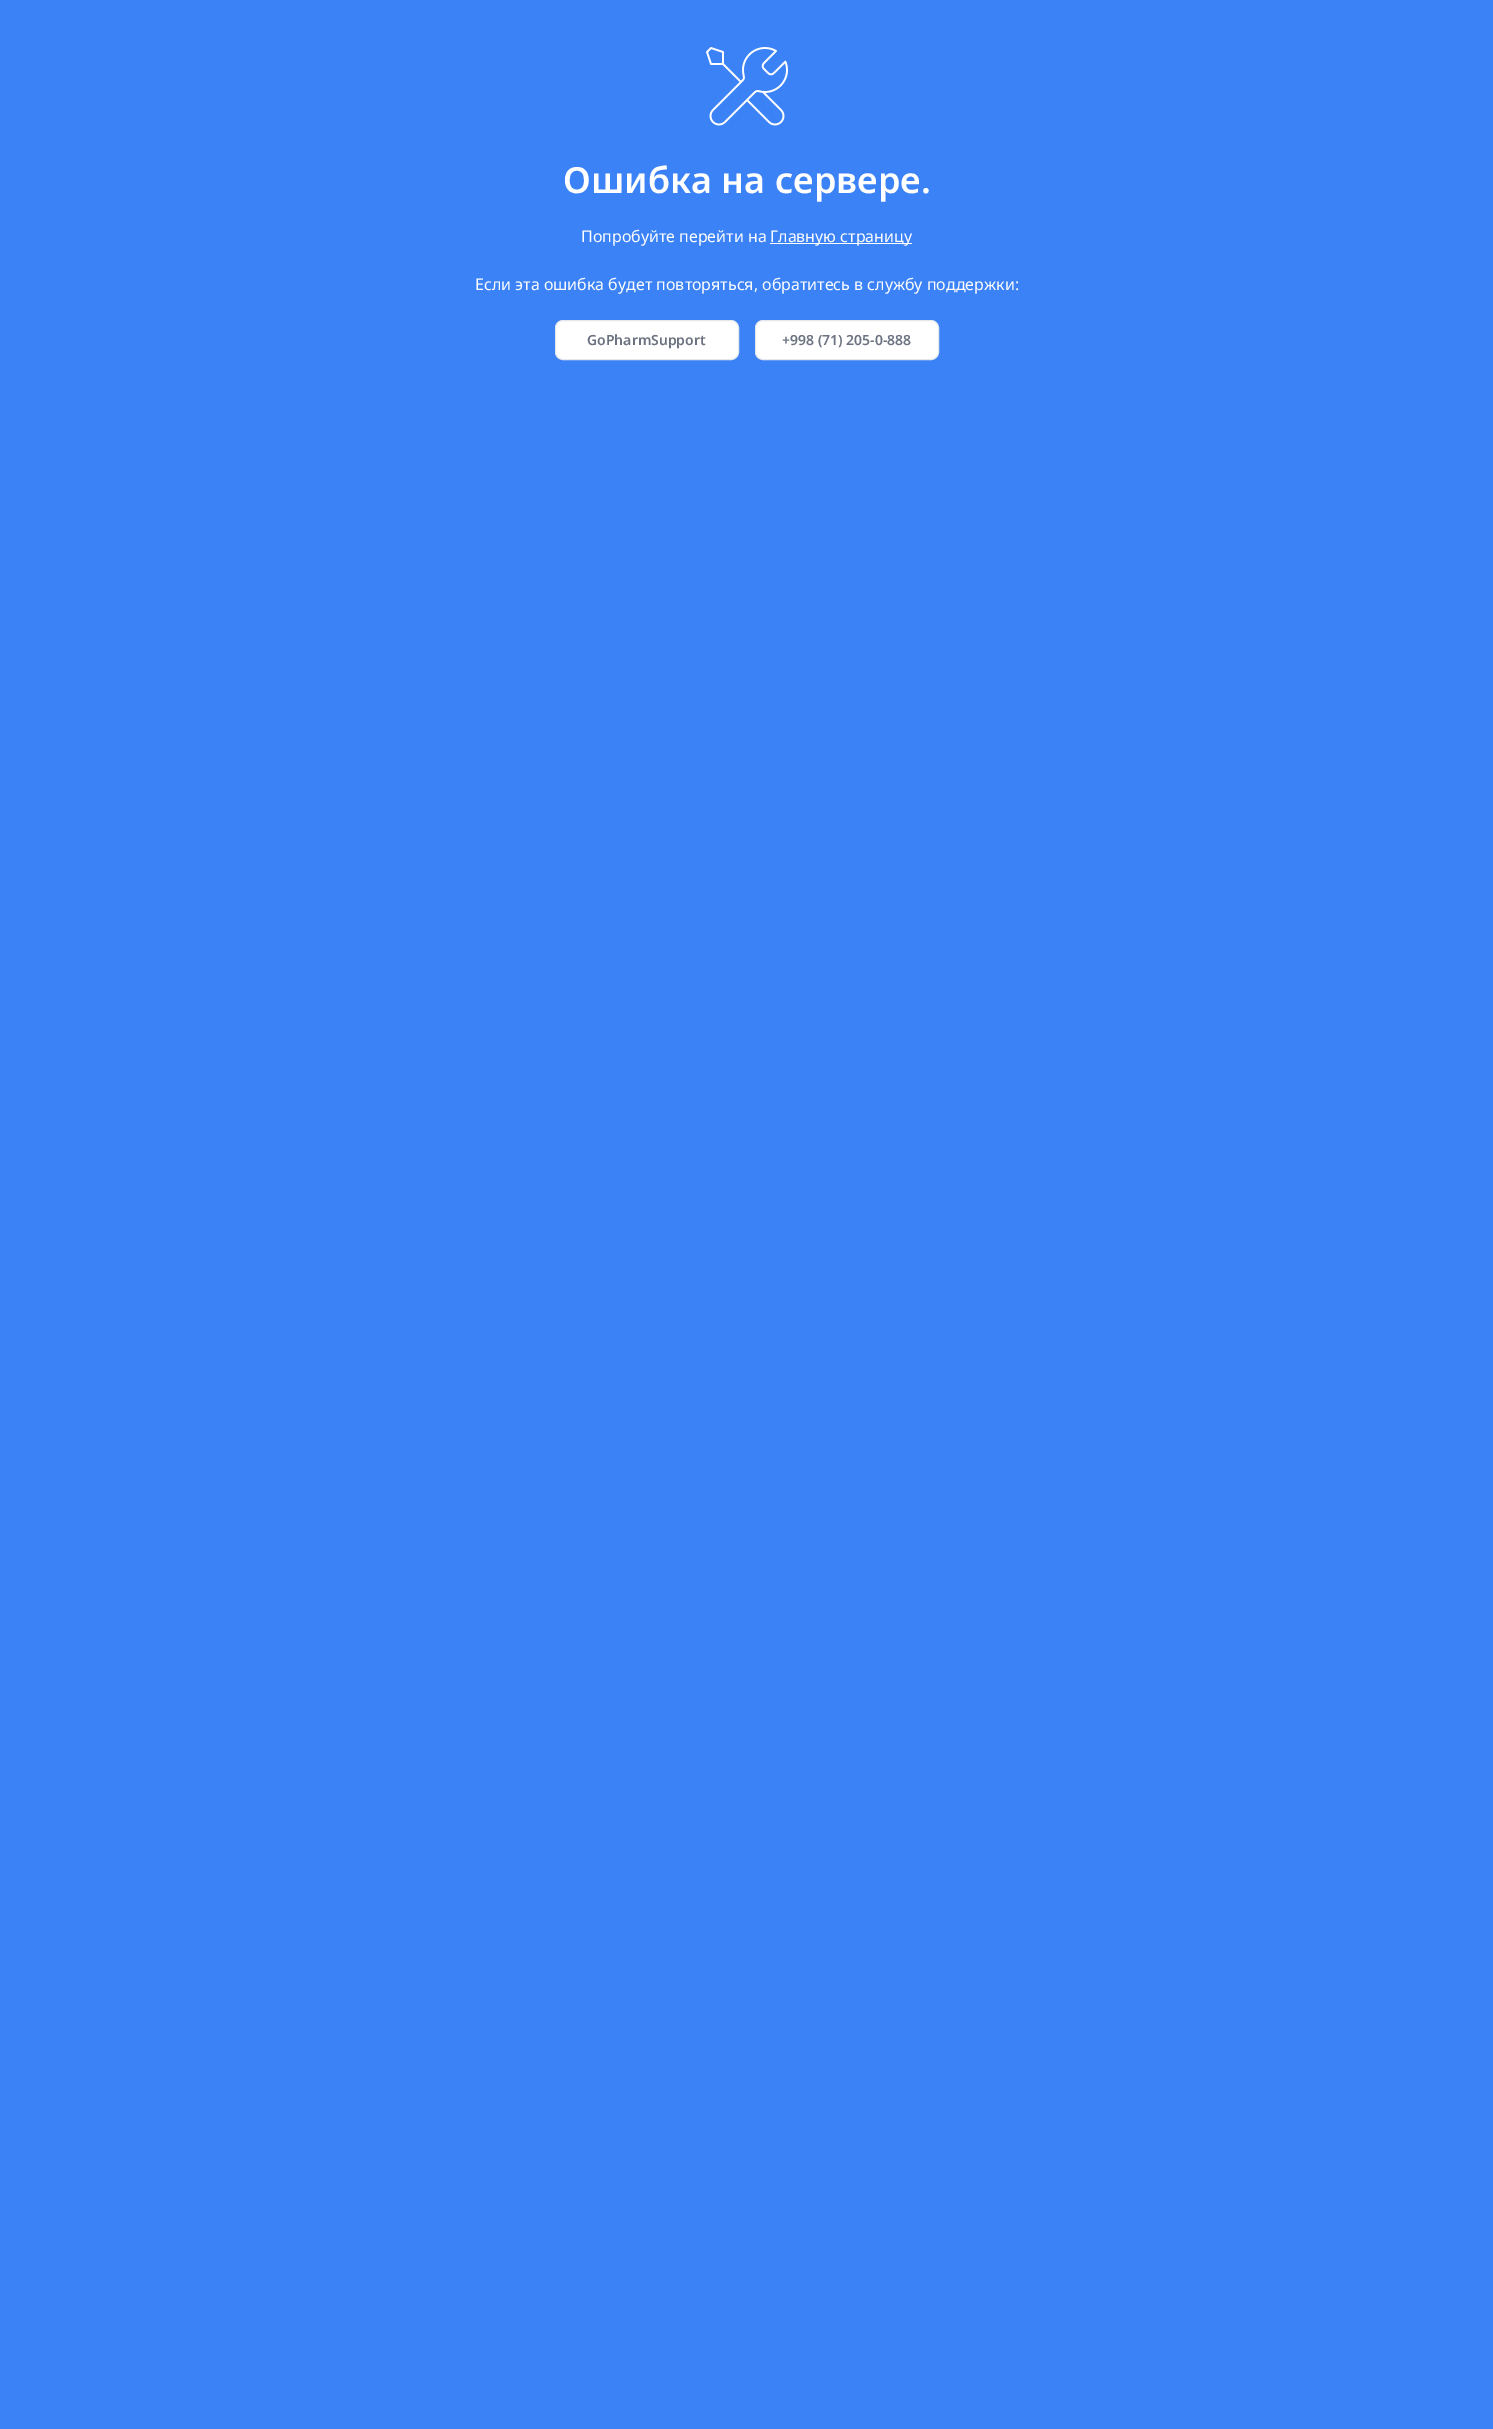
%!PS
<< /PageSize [1493 2429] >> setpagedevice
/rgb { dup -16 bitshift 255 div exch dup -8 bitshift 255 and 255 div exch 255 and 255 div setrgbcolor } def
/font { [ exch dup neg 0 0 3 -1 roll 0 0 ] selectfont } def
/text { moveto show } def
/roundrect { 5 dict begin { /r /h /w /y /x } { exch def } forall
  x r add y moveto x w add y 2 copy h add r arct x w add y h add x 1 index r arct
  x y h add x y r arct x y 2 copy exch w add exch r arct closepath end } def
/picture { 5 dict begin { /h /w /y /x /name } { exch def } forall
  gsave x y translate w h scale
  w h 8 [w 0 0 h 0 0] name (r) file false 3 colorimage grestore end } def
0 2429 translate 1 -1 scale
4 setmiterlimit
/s1 { /NotoSans-SemiBold 36 font 16#FFFFFF rgb } def
/s2 { /NotoSans-Regular 16 font 16#FFFFFF rgb } def
/s3 { /NotoSans-SemiBold 14 font 16#6B7280 rgb } def
16#3B82F6 rgb
0 0 1493 2429 rectfill
(pic1.raw) 706 47 82 79 picture
s1
(Ошибка на сервере.) 563 193 text
s2
(Попробуйте перейти на) 581 242 text
770 243 142 1 rectfill
(Главную страницу) 770 242 text
(Если эта ошибка будет повторяться, обратитесь в службу поддержки:) 475 290 text
555.5 320.5 183 39 7.5 roundrect gsave fill grestore
16#E5E7EB rgb
stroke
s3
(GoPharmSupport) 587 345 text
16#FFFFFF rgb
755.5 320.5 183 39 7.5 roundrect gsave fill grestore
16#E5E7EB rgb
stroke
s3
(+998 \(71\) 205-0-888) 782 345 text
showpage
